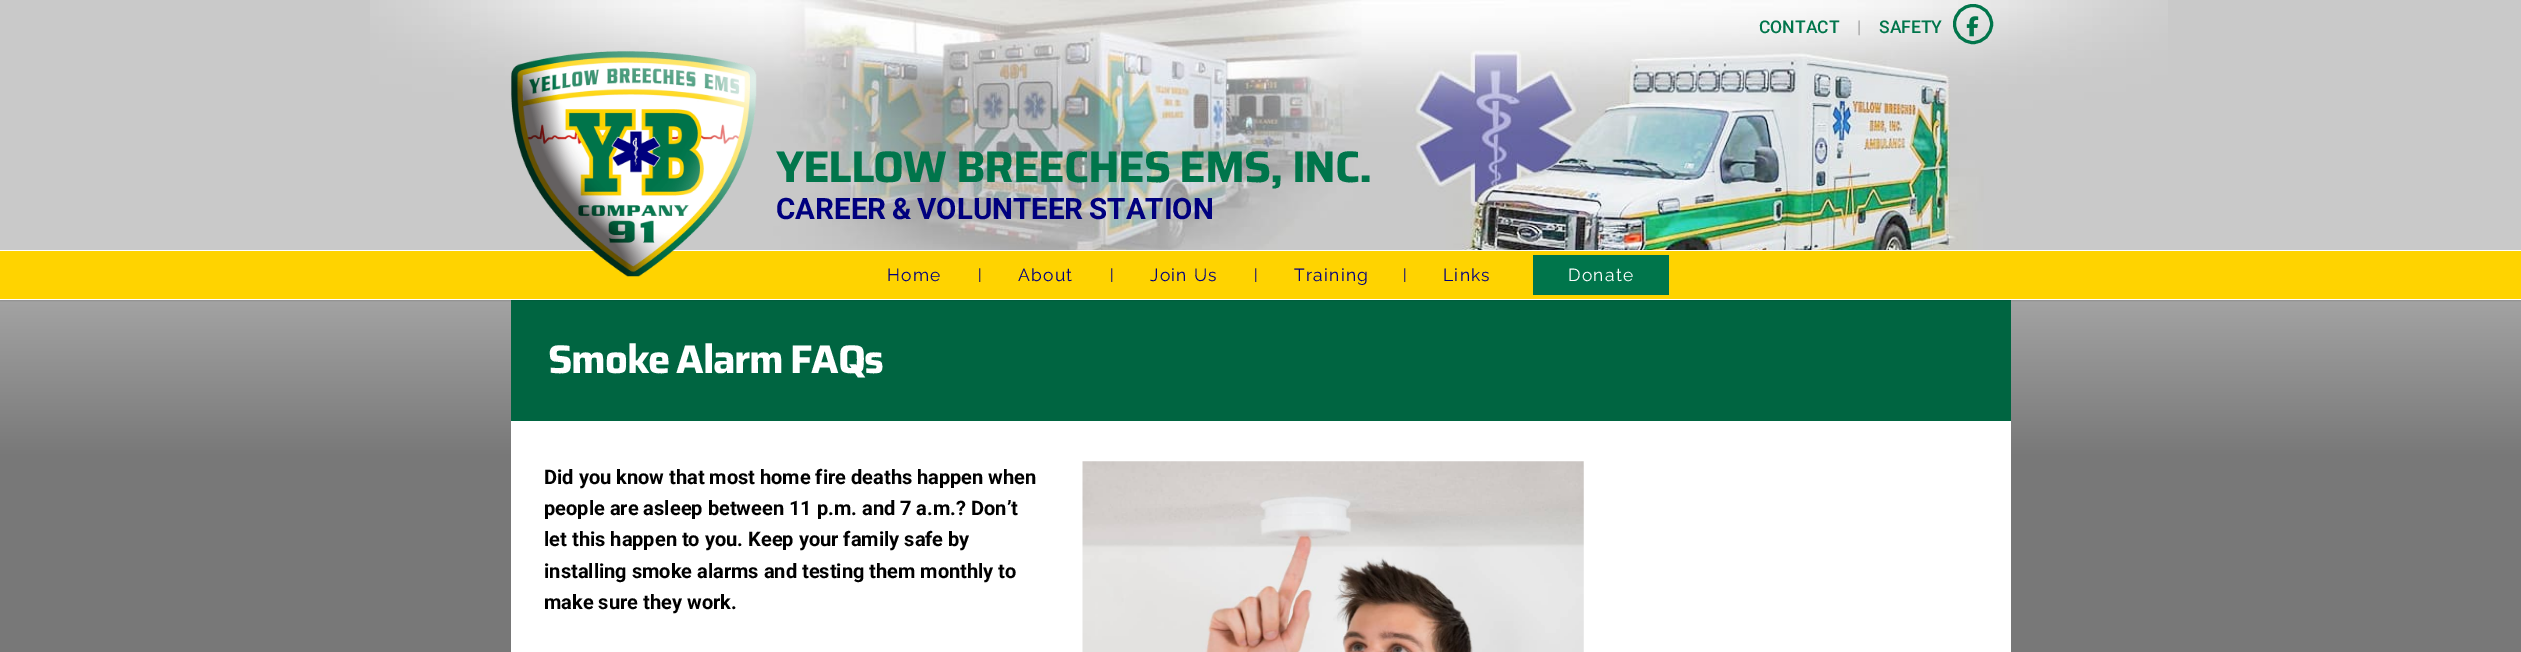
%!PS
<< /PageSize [2521 652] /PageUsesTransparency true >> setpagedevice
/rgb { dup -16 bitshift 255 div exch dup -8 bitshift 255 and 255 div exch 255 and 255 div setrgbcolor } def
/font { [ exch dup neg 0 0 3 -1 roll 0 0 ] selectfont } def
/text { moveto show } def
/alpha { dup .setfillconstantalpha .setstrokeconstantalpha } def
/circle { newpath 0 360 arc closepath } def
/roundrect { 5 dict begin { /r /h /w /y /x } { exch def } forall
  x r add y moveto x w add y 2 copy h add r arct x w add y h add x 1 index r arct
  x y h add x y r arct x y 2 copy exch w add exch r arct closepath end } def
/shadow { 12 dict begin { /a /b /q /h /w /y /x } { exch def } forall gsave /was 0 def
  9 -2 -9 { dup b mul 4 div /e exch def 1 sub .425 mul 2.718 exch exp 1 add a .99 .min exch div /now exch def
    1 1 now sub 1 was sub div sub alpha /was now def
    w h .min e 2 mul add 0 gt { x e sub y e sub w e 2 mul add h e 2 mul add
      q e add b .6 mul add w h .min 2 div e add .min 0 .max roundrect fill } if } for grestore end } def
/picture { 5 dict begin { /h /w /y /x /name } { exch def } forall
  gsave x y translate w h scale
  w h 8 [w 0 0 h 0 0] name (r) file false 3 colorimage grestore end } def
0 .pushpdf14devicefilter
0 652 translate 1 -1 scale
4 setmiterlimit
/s1 { /Roboto-Medium 17.5 font 16#00754B rgb } def
/s2 { /Roboto-Medium 17.5 font 16#A1A1A1 rgb } def
/s3 { /Roboto-Bold 20 font 16#000000 rgb } def
16#FFFFFF rgb
0 0 2521 652 rectfill
gsave 0 300 moveto 2521 300 lineto 2521 652 lineto 0 652 lineto closepath clip newpath
<< /ShadingType 2 /ColorSpace /DeviceRGB /Coords [1261 0 1261 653] /Extend [true true] /Function << /FunctionType 3 /Domain [0 1] /Functions [<< /FunctionType 2 /Domain [0 1] /C0 [0.788 0.788 0.788] /C1 [0.788 0.788 0.788] /N 1 >> << /FunctionType 2 /Domain [0 1] /C0 [0.788 0.788 0.788] /C1 [0.471 0.471 0.471] /N 1 >> << /FunctionType 2 /Domain [0 1] /C0 [0.471 0.471 0.471] /C1 [0.471 0.471 0.471] /N 1 >>] /Bounds [0.25 0.7] /Encode [0 1 0 1 0 1] >> >> shfill grestore
16#C9C9C9 rgb
0 0 2521 250 rectfill
(pic1.raw) 370 0 1798 250 picture
16#006541 rgb
511 300 1500 121 rectfill
16#000000 rgb
0 251 2521 50 0 0.5 0.1 shadow
16#FFD300 rgb
0 251 2521 48 rectfill
16#FFFFFF rgb
0 250 2521 1 rectfill
0 299 2521 1 rectfill
s1
(CONTACT) 1759 33 text
s2
(|) 1857 33 text
s1
(SAFETY) 1879 33 text
3 setlinewidth
1973 24 18.5 circle stroke
(pic2.raw) 1966 16 13 21 picture
(pic3.raw) 511 51 246 226 picture
/Saira-Bold 44.25 font
776 182 moveto -1.25 0 (YELLOW BREECHES EMS, INC.) ashow
/Roboto-Bold 29.5 font
16#00007E rgb
776 219 moveto -1.5 0 32 (CAREER & VOLUNTEER STATION) widthshow
/Raleway-Regular 17.5 font
887 281 moveto 1.25 0 (Home) ashow
/Raleway-Regular 15 font
978 280 moveto 1.25 0 (|) ashow
/Raleway-Regular 17.5 font
1018 281 moveto 1.25 0 (About) ashow
/Raleway-Regular 15 font
1110 280 moveto 1.25 0 (|) ashow
/Raleway-Regular 17.5 font
1150 281 moveto 1.25 0 (Join Us) ashow
/Raleway-Regular 15 font
1254 280 moveto 1.25 0 (|) ashow
/Raleway-Regular 17.5 font
1294 281 moveto 1.25 0 (Training) ashow
/Raleway-Regular 15 font
1403 280 moveto 1.25 0 (|) ashow
/Raleway-Regular 17.5 font
1443 281 moveto 1.25 0 (Links) ashow
16#00754B rgb
1533 255 136 40 rectfill
16#FFFFFF rgb
1568 281 moveto 1.25 0 (Donate) ashow
/Saira-Bold 40 font
548 373 moveto -2 0 32 -1.25 0 (Smoke Alarm FAQs) awidthshow
511 421 1500 231 rectfill
s3
(Did you know that most home fire deaths happen when) 544 484 text
(people are asleep between 11 p.m. and 7 a.m.? Don’t) 544 515 text
(let this happen to you. Keep your family safe by) 544 546 text
(installing smoke alarms and testing them monthly to) 544 578 text
(make sure they work.) 544 609 text
(pic4.raw) 1082 461 502 191 picture
.poppdf14devicefilter showpage
